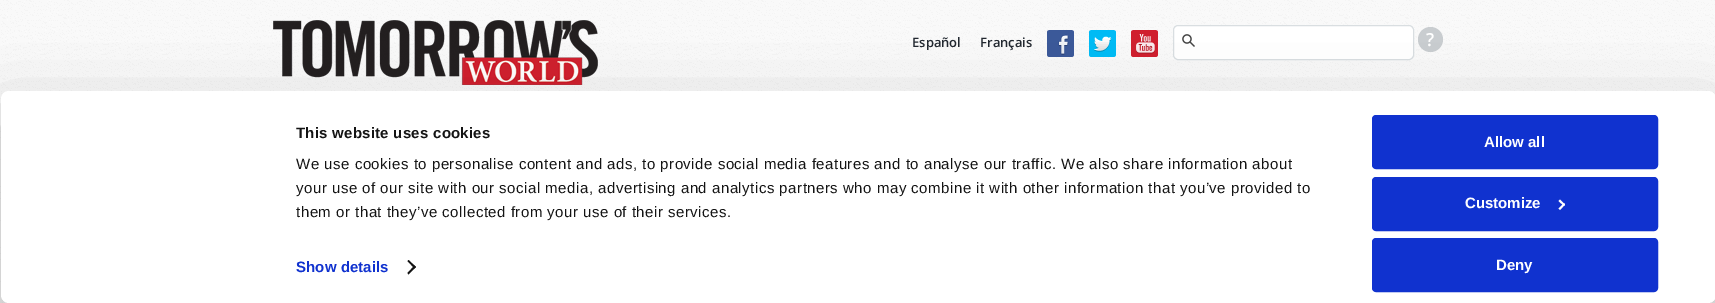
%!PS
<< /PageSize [1715 303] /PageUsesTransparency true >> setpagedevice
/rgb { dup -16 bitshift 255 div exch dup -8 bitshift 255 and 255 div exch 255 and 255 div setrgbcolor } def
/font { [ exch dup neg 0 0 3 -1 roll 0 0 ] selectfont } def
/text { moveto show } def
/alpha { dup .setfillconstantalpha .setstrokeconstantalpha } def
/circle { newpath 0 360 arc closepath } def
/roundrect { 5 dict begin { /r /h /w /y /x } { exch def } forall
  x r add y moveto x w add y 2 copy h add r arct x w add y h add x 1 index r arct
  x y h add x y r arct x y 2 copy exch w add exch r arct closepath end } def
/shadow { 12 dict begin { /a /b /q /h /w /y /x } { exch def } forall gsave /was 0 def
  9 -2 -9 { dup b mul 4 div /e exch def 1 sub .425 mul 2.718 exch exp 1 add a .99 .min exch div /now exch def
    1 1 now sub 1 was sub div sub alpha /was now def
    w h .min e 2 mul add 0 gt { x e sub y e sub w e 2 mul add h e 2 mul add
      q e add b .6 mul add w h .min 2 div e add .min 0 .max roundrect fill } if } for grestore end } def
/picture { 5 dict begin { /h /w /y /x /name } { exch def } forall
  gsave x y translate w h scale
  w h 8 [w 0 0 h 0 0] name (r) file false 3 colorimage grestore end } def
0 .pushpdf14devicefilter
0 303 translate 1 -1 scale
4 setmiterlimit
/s1 { /OpenSans-SemiBold 13 font 16#222830 rgb } def
/s2 { /OpenSans-SemiBold 18 font 16#FFFFFF rgb } def
/s3 { /LiberationSans-Bold 15 font 16#FFFFFF rgb } def
16#FFFFFF rgb
0 0 1715 303 rectfill
(pic1.raw) 0 0 1715 303 picture
(pic2.raw) 273 20 325 65 picture
s1
(Español) 912 47 text
(Français) 980 47 text
(pic3.raw) 1047 30 27 27 picture
(pic4.raw) 1089 30 27 27 picture
(pic5.raw) 1131 30 27 27 picture
16#FFFFFF rgb
1174 26 239 33 4 roundrect fill
(pic6.raw) 1182 34 13 13 picture
16#D9DEE1 rgb
1173.5 25.5 240 34 4.5 roundrect stroke
16#C9CDD0 rgb
1430.5 39.5 12.5 circle fill
s2
(?) 1426 46 text
16#000000 rgb
1 121 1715 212 8 35 0.3 shadow
16#FFFFFF rgb
1 91 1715 212 8 roundrect fill
gsave
296 121 1048 103 rectclip
/LiberationSans-Bold 15 font
16#141414 rgb
296 138 moveto 0.25 0 (This website uses cookies) ashow
grestore
/LiberationSans-Regular 15 font
16#141414 rgb
296 169 moveto 0.5 0 (We use cookies to personalise content and ads, to provide social media features and to analyse our traffic. We also share information about) ashow
296 193 moveto 0.5 0 (your use of our site with our social media, advertising and analytics partners who may combine it with other information that you’ve provided to) ashow
296 217 moveto 0.5 0 (them or that they’ve collected from your use of their services.) ashow
/LiberationSans-Bold 15 font
16#1032CF rgb
296 272 moveto 0.1 0 (Show details) ashow
16#141414 rgb
408.5 260 moveto 416 267 lineto 414.5 268.5 lineto 407.5 261 lineto closepath fill
414.5 265.5 moveto 416 267 lineto 408.5 274.5 lineto 407.5 273 lineto closepath fill
16#1032CF rgb
1373 116 284 52 3 roundrect gsave fill grestore
2 setlinewidth
stroke
s3
(Allow all) 1484 147 text
16#1032CF rgb
1373 178 284 52 3 roundrect gsave fill grestore
stroke
s3
(Customize) 1465 208 text
1560 199.5 moveto 1565 204.5 lineto 1564 206 lineto 1558.5 201 lineto closepath fill
1564 203 moveto 1565 204.5 lineto 1560 210 lineto 1558.5 208.5 lineto closepath fill
16#1032CF rgb
1373 239 284 52 3 roundrect gsave fill grestore
stroke
s3
(Deny) 1496 270 text
.poppdf14devicefilter showpage
